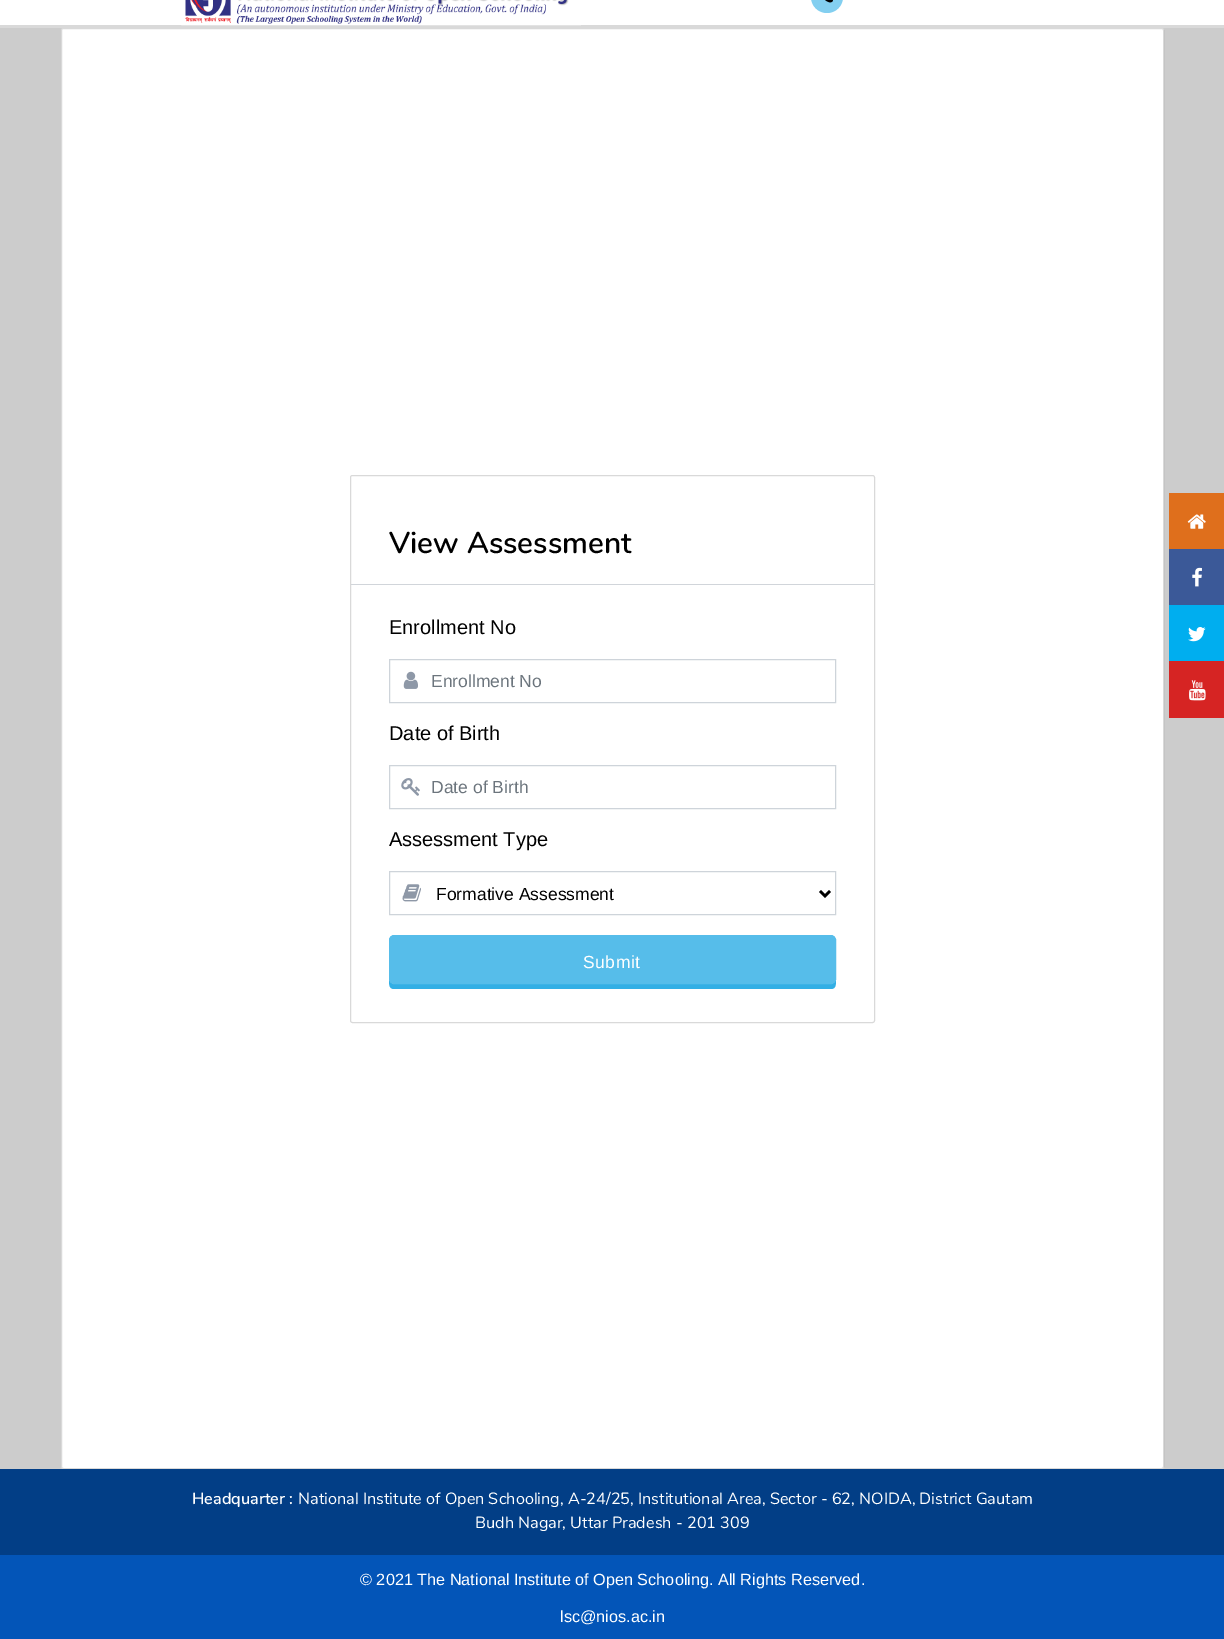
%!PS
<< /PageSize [1224 1639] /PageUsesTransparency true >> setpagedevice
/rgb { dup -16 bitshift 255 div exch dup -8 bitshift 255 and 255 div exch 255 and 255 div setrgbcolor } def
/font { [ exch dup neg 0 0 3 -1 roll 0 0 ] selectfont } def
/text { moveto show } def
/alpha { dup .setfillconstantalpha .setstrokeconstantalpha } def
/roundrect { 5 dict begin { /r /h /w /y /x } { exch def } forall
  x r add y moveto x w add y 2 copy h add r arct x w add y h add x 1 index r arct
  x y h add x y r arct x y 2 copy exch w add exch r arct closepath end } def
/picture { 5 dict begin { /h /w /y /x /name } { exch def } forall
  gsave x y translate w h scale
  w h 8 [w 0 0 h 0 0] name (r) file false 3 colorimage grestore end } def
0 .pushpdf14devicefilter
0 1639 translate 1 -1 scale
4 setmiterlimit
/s1 { /Nunito-SemiBold 30 font 16#000000 rgb } def
/s2 { /LiberationSans-Regular 20 font 16#000000 rgb } def
/s3 { /LiberationSans-Regular 17.5 font 16#6C757D rgb } def
/s4 { /LiberationSans-Regular 17.5 font 16#000000 rgb } def
/s5 { /Nunito-SemiBold 16.25 font 16#FFFFFF rgb } def
/s6 { /Nunito-Regular 16.25 font 16#FFFFFF rgb } def
/s7 { /LiberationSans-Regular 16.25 font 16#FFFFFF rgb } def
16#CCCCCC rgb
0 0 1224 1639 rectfill
16#FFFFFF rgb
0 0 1224 25 rectfill
16#D9D9D9 rgb
0 25 1224 3 rectfill
(pic1.raw) 181 0 400 26 picture
16#83CFF0 rgb
811 -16 32 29 16 roundrect fill
(pic2.raw) 825 0 8 3 picture
16#FFFFFF rgb
61 28 1103 1441 2.5 roundrect fill
0.15 alpha
16#000000 rgb
61.5 28.5 1102 1440 2 roundrect stroke
1 alpha
16#D9D9D9 rgb
350.5 475.5 524 547 2 roundrect stroke
16#D1D5DA rgb
351 584 523 1 rectfill
s1
(View Assessment) 389 553 text
s2
(Enrollment No) 389 634 text
16#CED4DA rgb
389.5 659.5 446 43 rectstroke
(pic3.raw) 403 671 15 18 picture
s3
(Enrollment No) 431 687 text
s2
(Date of Birth) 389 740 text
16#CED4DA rgb
389.5 765.5 446 43 rectstroke
(pic4.raw) 401 778 19 18 picture
s3
(Date of Birth) 431 793 text
s2
(Assessment Type) 389 846 text
16#CED4DA rgb
389.5 871.5 446 43 rectstroke
(pic5.raw) 402 884 19 18 picture
16#000000 rgb
2.5 setlinewidth
820 891 moveto 825 896 lineto 830 891 lineto stroke
s4
(Formative Assessment) 436 900 text
16#32AFE5 rgb
389 980 moveto 389 984 389 989 394 989 curveto 831 989 lineto 836 989 836 984 836 980 curveto 835 982 833 984 831 984 curveto 394 984 lineto 392 984 390 982 389 980 curveto closepath fill
16#56BDEA rgb
389.5 935.5 446 48 4.5 roundrect gsave fill grestore
1 setlinewidth
stroke
16#FFFFFF rgb
583 968 moveto 0.5 0 (Submit) ashow
16#DF6F1C rgb
1169 493 55 56 rectfill
(pic6.raw) 1187 514 19 15 picture
16#3B5998 rgb
1169 549 55 56 rectfill
(pic7.raw) 1192 567 10 20 picture
16#00AEEF rgb
1169 605 55 56 rectfill
(pic8.raw) 1188 627 18 15 picture
16#D62423 rgb
1169 661 55 57 rectfill
(pic9.raw) 1189 680 17 21 picture
16#023E86 rgb
0 1469 1224 86 rectfill
s5
(Headquarter :) 192 1504 text
s6
(National Institute of Open Schooling, A-24/25, Institutional Area, Sector - 62, NOIDA, District Gautam) 298 1504 text
(Budh Nagar, Uttar Pradesh - 201 309) 475 1528 text
16#0355B8 rgb
0 1555 1224 84 rectfill
s7
(© 2021 The National Institute of Open Schooling. All Rights Reserved.) 360 1585 text
(lsc@nios.ac.in) 560 1622 text
.poppdf14devicefilter showpage
